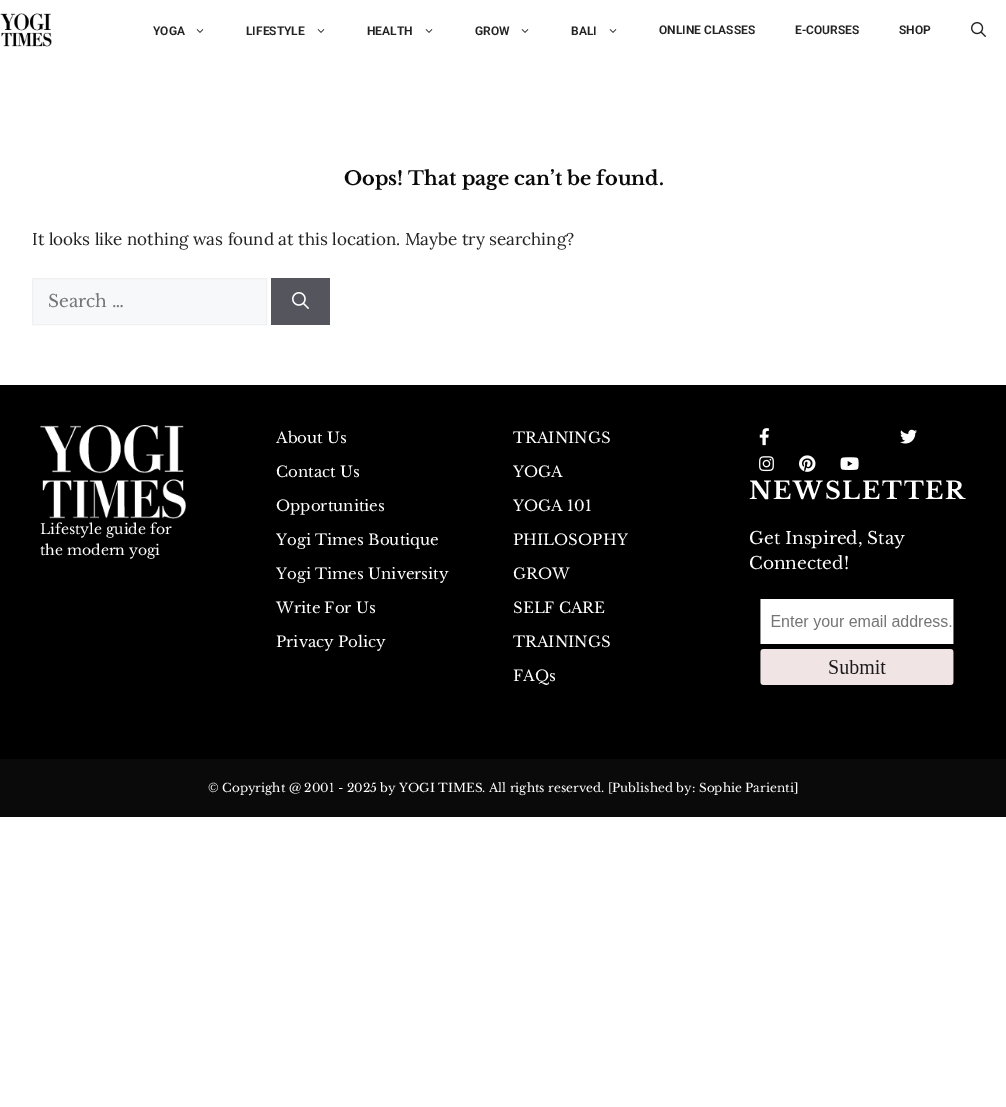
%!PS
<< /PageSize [1006 1107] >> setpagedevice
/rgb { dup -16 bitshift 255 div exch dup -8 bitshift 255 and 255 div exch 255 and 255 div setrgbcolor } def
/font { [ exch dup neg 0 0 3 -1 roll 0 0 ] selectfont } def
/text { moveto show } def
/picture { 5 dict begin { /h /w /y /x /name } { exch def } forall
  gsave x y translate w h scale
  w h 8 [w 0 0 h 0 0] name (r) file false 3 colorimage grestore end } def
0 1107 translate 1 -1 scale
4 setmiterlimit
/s1 { /Roboto-SemiBold 12 font 16#222222 rgb } def
/s2 { /LibreBaskerville-Bold 19.25 font 16#0A0A0A rgb } def
/s3 { /Lora-Regular 17 font 16#222222 rgb } def
/s4 { /LibreBaskerville-Regular 17 font 16#757575 rgb } def
/s5 { /LibreBaskerville-Regular 14 font 16#FFFFFF rgb } def
/s6 { /LibreBaskerville-Regular 15 font 16#FFFFFF rgb } def
/s7 { /LibreBaskerville-Regular 17 font 16#FFFFFF rgb } def
/s8 { /LibreBaskerville-Regular 12 font 16#FFFFFF rgb } def
16#FFFFFF rgb
0 0 1006 1107 rectfill
(pic1.raw) 0 13 52 34 picture
s1
(YOGA) 153 35 text
(pic2.raw) 196 29 8 4 picture
(LIFESTYLE) 246 35 text
(pic2.raw) 317 29 8 4 picture
(HEALTH) 367 35 text
(pic2.raw) 425 29 8 4 picture
(GROW) 475 35 text
(pic2.raw) 521 29 8 4 picture
(BALI) 571 35 text
(pic2.raw) 609 29 8 4 picture
(ONLINE CLASSES) 659 34 text
(E-COURSES) 795 34 text
(SHOP) 899 34 text
(pic3.raw) 971 22 15 15 picture
s2
(Oops! That page can’t be found.) 344 185 text
s3
(It looks like nothing was found at this location. Maybe try searching?) 32 245 text
16#F7F8F9 rgb
32.5 278.5 moveto 266.5 278.5 lineto 266.5 324.5 lineto 32.5 324.5 lineto closepath gsave fill grestore
16#F0F0F0 rgb
stroke
s4
(Search …) 48 307 text
16#55555E rgb
271 278 59 47 rectfill
(pic4.raw) 292 292 17 17 picture
16#000000 rgb
0 385 1006 374 rectfill
(pic5.raw) 40 425 146 94 picture
s5
(Lifestyle guide for) 40 534 text
(the modern yogi) 40 555 text
s6
(About Us) 276 443 text
(Contact Us) 276 477 text
(Opportunities) 276 511 text
(Yogi Times Boutique) 276 545 text
(Yogi Times University) 276 579 text
(Write For Us) 276 613 text
(Privacy Policy) 276 647 text
(TRAININGS) 513 443 text
(YOGA) 513 477 text
(YOGA 101) 513 511 text
(PHILOSOPHY) 513 545 text
(GROW) 513 579 text
(SELF CARE) 513 613 text
(TRAININGS) 513 647 text
(FAQs) 513 681 text
(pic6.raw) 759 428 10 18 picture
(pic7.raw) 900 429 17 15 picture
(pic8.raw) 759 456 15 16 picture
(pic9.raw) 799 455 17 17 picture
(pic10.raw) 840 457 19 13 picture
/LibreBaskerville-Bold 24 font
749 499 moveto 1.75 0 (NEWSLETTER) ashow
s7
(Get Inspired, Stay) 749 544 text
(Connected!) 749 569 text
(pic11.raw) 760 599 194 86 picture
16#0A0A0A rgb
0 759 1006 58 rectfill
s8
(© Copyright @ 2001 - 2025 by YOGI TIMES. All rights reserved. [Published by: Sophie Parienti]) 208 792 text
showpage
